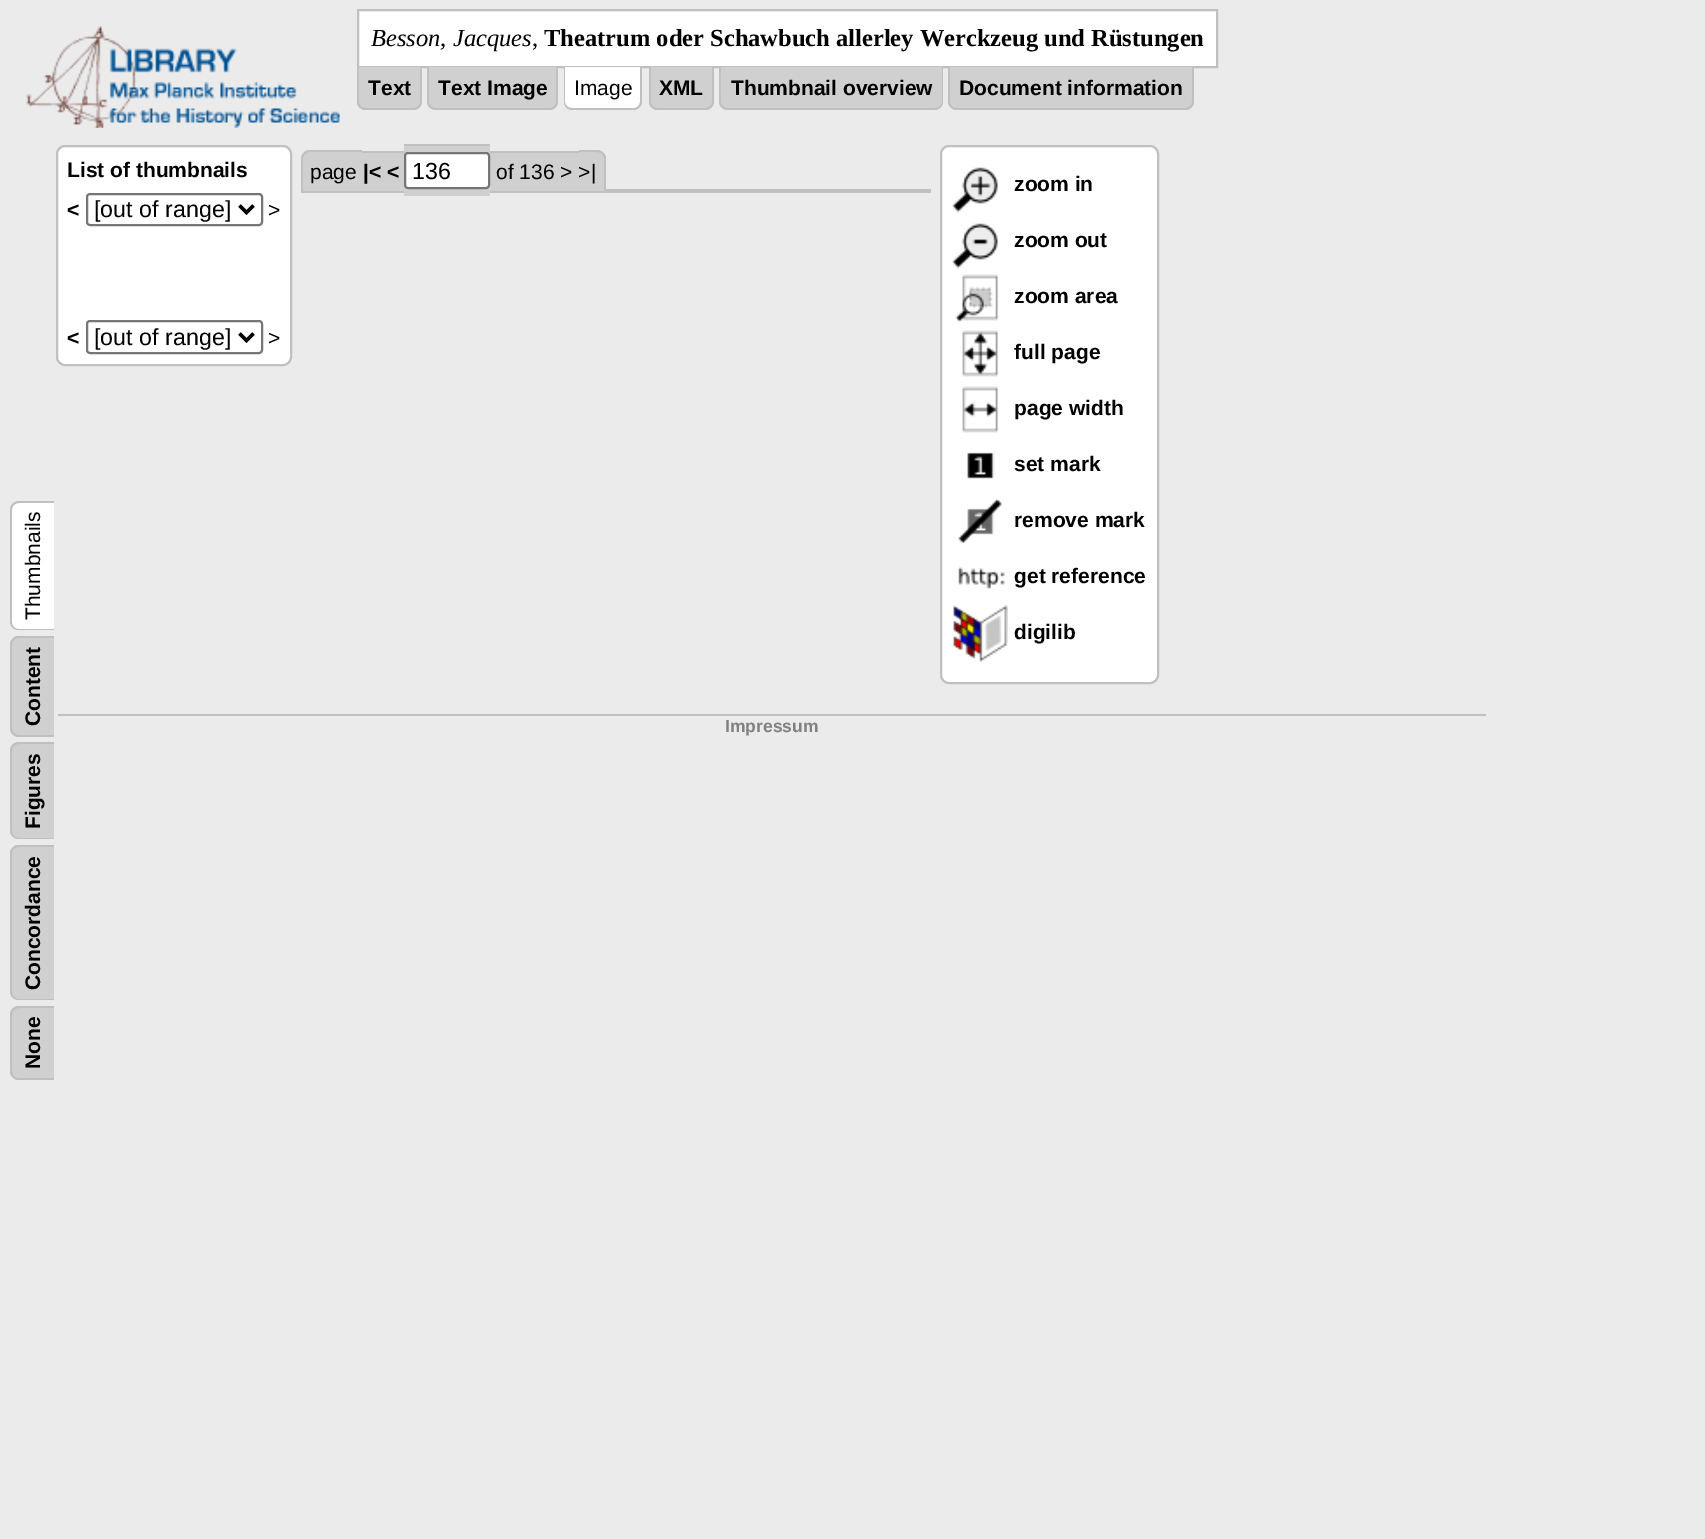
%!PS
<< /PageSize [1705 1539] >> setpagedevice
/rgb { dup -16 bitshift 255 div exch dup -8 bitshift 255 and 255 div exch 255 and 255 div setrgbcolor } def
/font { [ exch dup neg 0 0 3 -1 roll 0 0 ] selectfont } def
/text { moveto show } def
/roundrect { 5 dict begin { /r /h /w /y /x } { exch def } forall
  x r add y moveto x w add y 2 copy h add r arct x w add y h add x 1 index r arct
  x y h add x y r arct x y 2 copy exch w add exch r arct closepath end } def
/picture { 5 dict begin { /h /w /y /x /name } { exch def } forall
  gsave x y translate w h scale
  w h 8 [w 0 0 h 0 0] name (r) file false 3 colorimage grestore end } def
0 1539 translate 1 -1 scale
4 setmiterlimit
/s1 { /LiberationSerif-Italic 24.5 font 16#000000 rgb } def
/s2 { /LiberationSerif-Regular 24.5 font 16#000000 rgb } def
/s3 { /LiberationSerif-Bold 24.5 font 16#000000 rgb } def
/s4 { /LiberationSans-Bold 21 font 16#000000 rgb } def
/s5 { /LiberationSans-Regular 21 font 16#000000 rgb } def
/s6 { /LiberationSans-Regular 23.25 font 16#000000 rgb } def
/s7 { /LiberationSans-Bold 17.5 font 16#808080 rgb } def
16#EBEBEB rgb
0 0 1705 1539 rectfill
(pic1.raw) 26 26 314 102 picture
16#FFFFFF rgb
358 10 moveto 1217 10 lineto 1217 67 lineto 358 67 lineto closepath gsave fill grestore
16#C0C0C0 rgb
2 setlinewidth
stroke
s1
(Besson, Jacques) 371 46 text
s2
(,) 532 46 text
s3
(Theatrum oder Schawbuch allerley Werckzeug und Rüstungen) 544 46 text
16#D0D0D0 rgb
357 67 moveto 422 67 lineto 422 101 lineto 422 106 418 110 413 110 curveto 366 110 lineto 361 110 357 106 357 101 curveto closepath fill
16#C0C0C0 rgb
357 66 moveto 422 66 lineto 422 102 lineto 422 106 418 110 413 110 curveto 366 110 lineto 361 110 357 106 357 102 curveto closepath 359 66 moveto 420 66 lineto 420 102 lineto 420 105 417 108 413 108 curveto 366 108 lineto 362 108 359 105 359 102 curveto closepath eofill
s4
(Text) 368 95 text
16#D0D0D0 rgb
427 67 moveto 558 67 lineto 558 101 lineto 558 106 554 110 549 110 curveto 436 110 lineto 431 110 427 106 427 101 curveto closepath fill
16#C0C0C0 rgb
427 66 moveto 558 66 lineto 558 102 lineto 558 106 554 110 550 110 curveto 436 110 lineto 431 110 427 106 427 102 curveto closepath 429 66 moveto 556 66 lineto 556 102 lineto 556 105 553 108 550 108 curveto 436 108 lineto 432 108 429 105 429 102 curveto closepath eofill
s4
(Text Image) 438 95 text
16#FFFFFF rgb
564 67 moveto 642 67 lineto 642 101 lineto 642 106 638 110 633 110 curveto 573 110 lineto 568 110 564 106 564 101 curveto closepath fill
16#C0C0C0 rgb
564 66 moveto 642 66 lineto 642 102 lineto 642 106 638 110 634 110 curveto 572 110 lineto 567 110 564 106 564 102 curveto closepath 565 66 moveto 640 66 lineto 640 102 lineto 640 105 637 108 634 108 curveto 572 108 lineto 568 108 565 105 565 102 curveto closepath eofill
s5
(Image) 574 95 text
16#D0D0D0 rgb
649 67 moveto 714 67 lineto 714 101 lineto 714 106 710 110 705 110 curveto 658 110 lineto 653 110 649 106 649 101 curveto closepath fill
16#C0C0C0 rgb
649 66 moveto 714 66 lineto 714 102 lineto 714 106 710 110 705 110 curveto 658 110 lineto 653 110 649 106 649 102 curveto closepath 651 66 moveto 712 66 lineto 712 102 lineto 712 105 709 108 705 108 curveto 658 108 lineto 654 108 651 105 651 102 curveto closepath eofill
s4
(XML) 659 95 text
16#D0D0D0 rgb
719 67 moveto 943 67 lineto 943 101 lineto 943 106 939 110 934 110 curveto 728 110 lineto 723 110 719 106 719 101 curveto closepath fill
16#C0C0C0 rgb
719 66 moveto 943 66 lineto 943 102 lineto 943 106 939 110 934 110 curveto 728 110 lineto 723 110 719 106 719 102 curveto closepath 721 66 moveto 942 66 lineto 942 102 lineto 942 105 938 108 934 108 curveto 728 108 lineto 724 108 721 105 721 102 curveto closepath eofill
s4
(Thumbnail overview) 731 95 text
16#D0D0D0 rgb
949 67 moveto 1194 67 lineto 1194 101 lineto 1194 106 1190 110 1185 110 curveto 958 110 lineto 953 110 949 106 949 101 curveto closepath fill
16#C0C0C0 rgb
948 66 moveto 1194 66 lineto 1194 102 lineto 1194 106 1190 110 1185 110 curveto 957 110 lineto 952 110 948 106 948 102 curveto closepath 950 66 moveto 1192 66 lineto 1192 102 lineto 1192 105 1189 108 1185 108 curveto 957 108 lineto 953 108 950 105 950 102 curveto closepath eofill
s4
(Document information) 959 95 text
16#FFFFFF rgb
57 146 234 219 8 roundrect gsave fill grestore
16#C0C0C0 rgb
stroke
s4
(List of thumbnails) 67 177 text
(<) 67 217 text
16#767676 rgb
87 194 175 31 3 roundrect stroke
16#000000 rgb
3.5 setlinewidth
239.5 205.5 moveto 246.5 212.5 lineto 253.5 205.5 lineto stroke
s6
([out of range]) 94 217 text
s5
(>) 268 217 text
s4
(<) 67 345 text
16#767676 rgb
2 setlinewidth
87 321 175 32 3 roundrect stroke
16#000000 rgb
3.5 setlinewidth
239.5 333.5 moveto 246.5 340.5 lineto 253.5 333.5 lineto stroke
s6
([out of range]) 94 345 text
s5
(>) 268 345 text
16#FFFFFF rgb
10 622 moveto 10 510 lineto 10 505 14 501 19 501 curveto 54 501 lineto 54 630 lineto 19 630 lineto 14 630 10 627 10 622 curveto closepath fill
16#C0C0C0 rgb
10 622 moveto 10 510 lineto 10 505 14 501 19 501 curveto 54 501 lineto 54 630 lineto 19 630 lineto 14 630 10 627 10 622 curveto closepath 12 622 moveto 12 510 lineto 12 506 15 503 19 503 curveto 54 503 lineto 54 629 lineto 19 629 lineto 15 629 12 626 12 622 curveto closepath eofill
16#000000 rgb
gsave 40 620 translate -90 rotate 0 0 moveto (Thumbnails) show grestore
16#D0D0D0 rgb
10 728 moveto 10 645 lineto 10 640 14 636 19 636 curveto 54 636 lineto 54 737 lineto 19 737 lineto 14 737 10 733 10 728 curveto closepath fill
16#C0C0C0 rgb
10 728 moveto 10 645 lineto 10 640 14 636 19 636 curveto 54 636 lineto 54 737 lineto 19 737 lineto 14 737 10 733 10 728 curveto closepath 12 728 moveto 12 645 lineto 12 641 15 638 19 638 curveto 54 638 lineto 54 735 lineto 19 735 lineto 15 735 12 732 12 728 curveto closepath eofill
/LiberationSans-Bold 21 font
16#000000 rgb
gsave 40 726 translate -90 rotate 0 0 moveto (Content) show grestore
16#D0D0D0 rgb
10 831 moveto 10 751 lineto 10 746 14 742 19 742 curveto 54 742 lineto 54 839 lineto 19 839 lineto 14 839 10 835 10 831 curveto closepath fill
16#C0C0C0 rgb
10 831 moveto 10 751 lineto 10 746 14 742 19 742 curveto 54 742 lineto 54 839 lineto 19 839 lineto 14 839 10 835 10 831 curveto closepath 12 831 moveto 12 751 lineto 12 747 15 744 19 744 curveto 54 744 lineto 54 838 lineto 19 838 lineto 15 838 12 834 12 831 curveto closepath eofill
16#000000 rgb
gsave 40 829 translate -90 rotate 0 0 moveto (Figures) show grestore
16#D0D0D0 rgb
10 992 moveto 10 854 lineto 10 849 14 845 19 845 curveto 54 845 lineto 54 1000 lineto 19 1000 lineto 14 1000 10 996 10 992 curveto closepath fill
16#C0C0C0 rgb
10 992 moveto 10 854 lineto 10 849 14 845 19 845 curveto 54 845 lineto 54 1000 lineto 19 1000 lineto 14 1000 10 996 10 992 curveto closepath 12 992 moveto 12 854 lineto 12 850 15 847 19 847 curveto 54 847 lineto 54 999 lineto 19 999 lineto 15 999 12 996 12 992 curveto closepath eofill
16#000000 rgb
gsave 40 990 translate -90 rotate 0 0 moveto (Concordance) show grestore
16#D0D0D0 rgb
10 1071 moveto 10 1015 lineto 10 1010 14 1006 19 1006 curveto 54 1006 lineto 54 1080 lineto 19 1080 lineto 14 1080 10 1076 10 1071 curveto closepath fill
16#C0C0C0 rgb
10 1071 moveto 10 1015 lineto 10 1010 14 1006 19 1006 curveto 54 1006 lineto 54 1080 lineto 19 1080 lineto 14 1080 10 1076 10 1071 curveto closepath 12 1071 moveto 12 1015 lineto 12 1011 15 1008 19 1008 curveto 54 1008 lineto 54 1078 lineto 19 1078 lineto 15 1078 12 1075 12 1071 curveto closepath eofill
16#000000 rgb
gsave 40 1069 translate -90 rotate 0 0 moveto (None) show grestore
16#C0C0C0 rgb
301 189 630 4 rectfill
16#D0D0D0 rgb
310 151 moveto 362 151 lineto 362 191 lineto 301 191 lineto 301 160 lineto 301 155 305 151 310 151 curveto closepath fill
16#C0C0C0 rgb
310 150 moveto 362 150 lineto 362 191 lineto 301 191 lineto 301 159 lineto 301 154 305 150 310 150 curveto closepath 310 152 moveto 362 152 lineto 362 191 lineto 303 191 lineto 303 159 lineto 303 155 306 152 310 152 curveto closepath eofill
16#D0D0D0 rgb
362 153 20 38 rectfill
16#C0C0C0 rgb
362 151 20 2 rectfill
16#D0D0D0 rgb
382 151 5 40 rectfill
16#C0C0C0 rgb
382 151 17 2 rectfill
16#D0D0D0 rgb
387 153 12 38 rectfill
399 151 5 40 rectfill
16#C0C0C0 rgb
399 151 5 2 rectfill
16#D0D0D0 rgb
404 146 86 50 rectfill
16#C0C0C0 rgb
404 144 86 2 rectfill
16#D0D0D0 rgb
490 151 7 40 rectfill
16#C0C0C0 rgb
490 151 82 2 rectfill
16#D0D0D0 rgb
497 153 75 38 rectfill
572 151 7 40 rectfill
16#C0C0C0 rgb
572 151 7 2 rectfill
16#D0D0D0 rgb
579 151 moveto 597 151 lineto 602 151 606 155 606 160 curveto 606 191 lineto 579 191 lineto closepath fill
16#C0C0C0 rgb
579 150 moveto 597 150 lineto 602 150 606 154 606 159 curveto 606 191 lineto 579 191 lineto closepath 579 152 moveto 597 152 lineto 601 152 604 155 604 159 curveto 604 191 lineto 579 191 lineto closepath eofill
s5
(page) 310 179 text
s4
(|< <) 363 179 text
16#FFFFFF rgb
405 153 84 35 3 roundrect gsave fill grestore
16#767676 rgb
2 setlinewidth
stroke
s6
(136) 412 179 text
s5
(of 136 > >|) 496 179 text
16#FFFFFF rgb
941 146 217 537 8 roundrect gsave fill grestore
16#C0C0C0 rgb
stroke
(pic2.raw) 952 167 46 46 picture
s4
(zoom in) 1014 191 text
(pic3.raw) 952 223 46 46 picture
(zoom out) 1014 247 text
(pic4.raw) 955 274 44 49 picture
(zoom area) 1014 303 text
(pic5.raw) 962 330 37 47 picture
(full page) 1014 359 text
(pic6.raw) 962 386 37 47 picture
(page width) 1014 415 text
(pic7.raw) 967 452 28 27 picture
(set mark) 1014 471 text
(pic8.raw) 958 498 44 45 picture
(remove mark) 1014 527 text
(pic9.raw) 958 566 47 23 picture
(get reference) 1014 583 text
(pic10.raw) 953 605 55 57 picture
(digilib) 1014 639 text
16#C0C0C0 rgb
58 714 1428 2 rectfill
s7
(Impressum) 725 732 text
showpage
